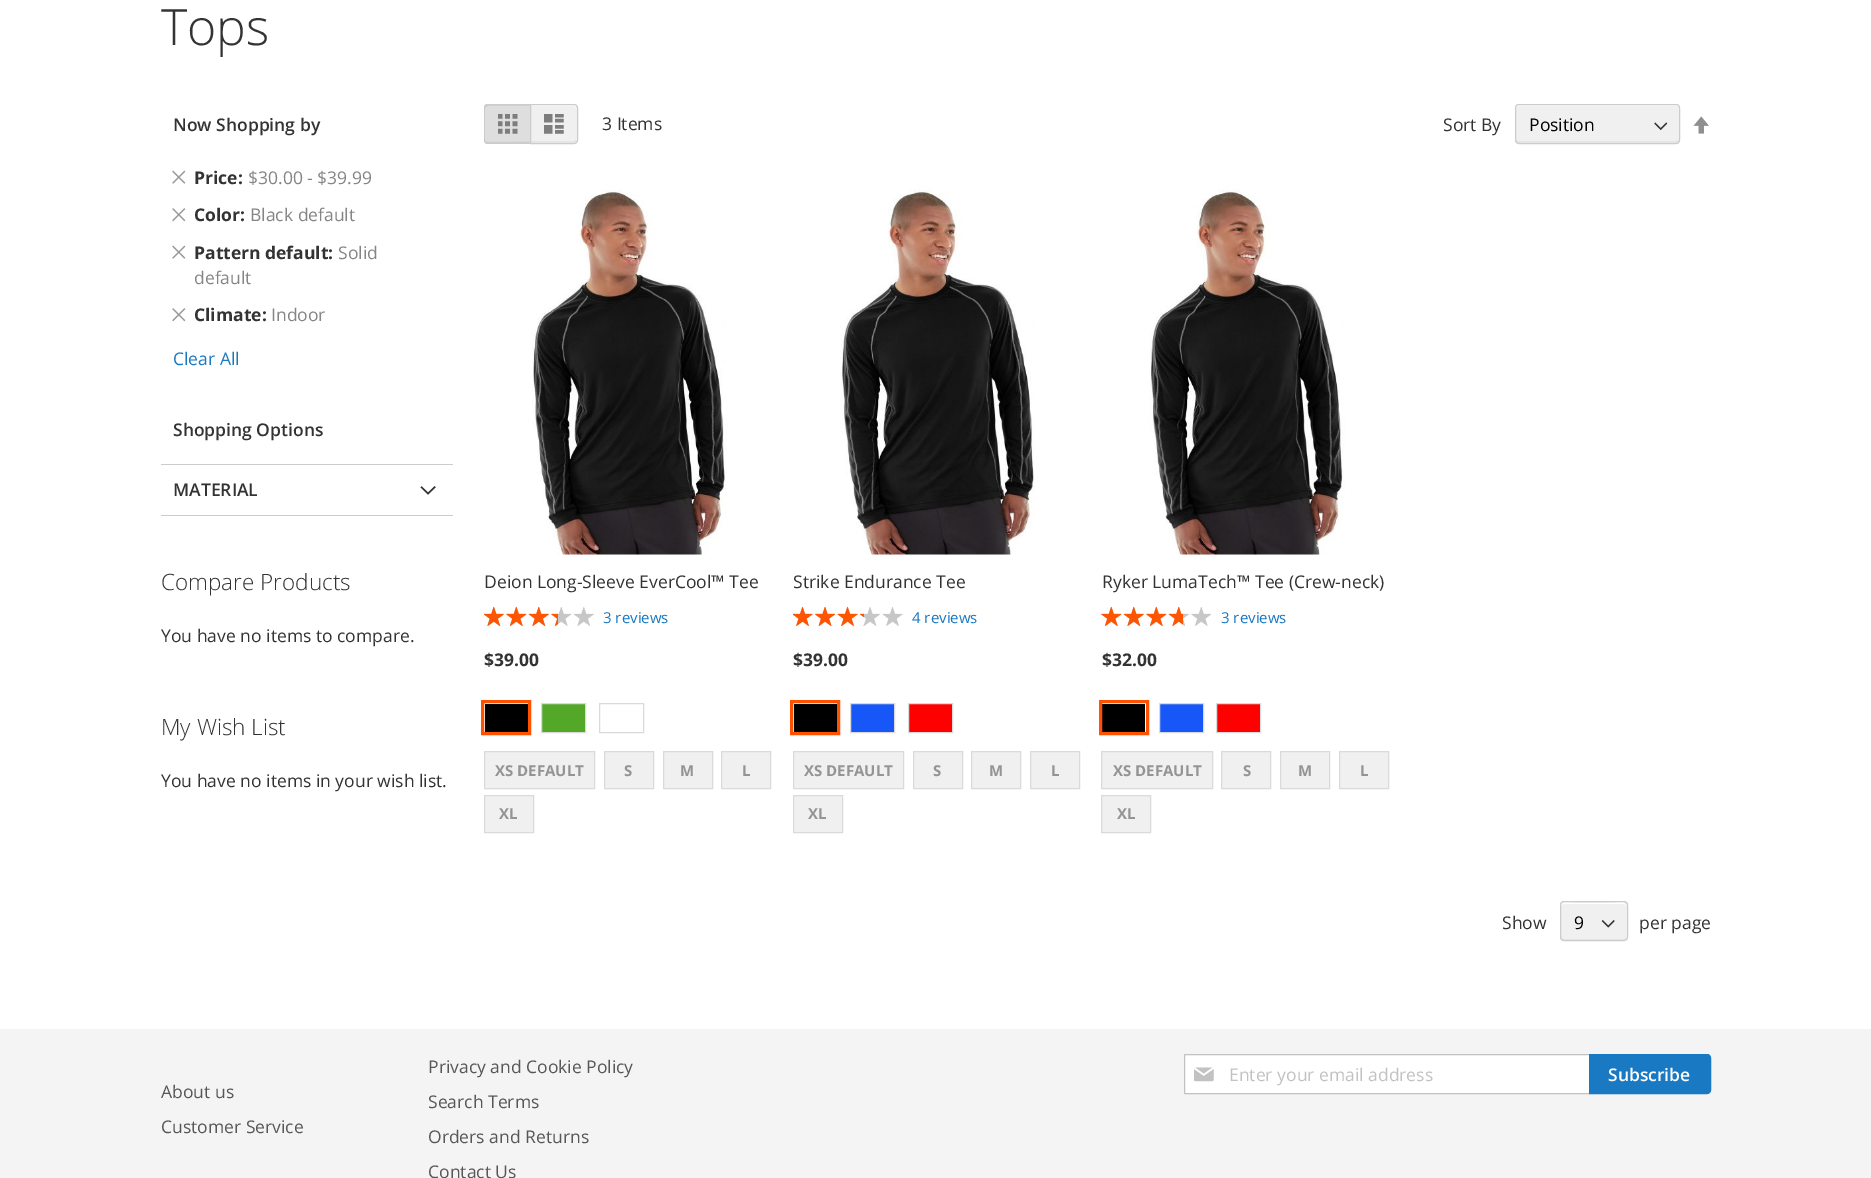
%!PS
<< /PageSize [1871 1178] >> setpagedevice
/rgb { dup -16 bitshift 255 div exch dup -8 bitshift 255 and 255 div exch 255 and 255 div setrgbcolor } def
/font { [ exch dup neg 0 0 3 -1 roll 0 0 ] selectfont } def
/text { moveto show } def
/roundrect { 5 dict begin { /r /h /w /y /x } { exch def } forall
  x r add y moveto x w add y 2 copy h add r arct x w add y h add x 1 index r arct
  x y h add x y r arct x y 2 copy exch w add exch r arct closepath end } def
/picture { 5 dict begin { /h /w /y /x /name } { exch def } forall
  gsave x y translate w h scale
  w h 8 [w 0 0 h 0 0] name (r) file false 3 colorimage grestore end } def
0 1178 translate 1 -1 scale
4 setmiterlimit
/s1 { /OpenSans-Light 50 font 16#333333 rgb } def
/s2 { /OpenSans-SemiBold 17.5 font 16#333333 rgb } def
/s3 { /OpenSans-Bold 17.5 font 16#333333 rgb } def
/s4 { /OpenSans-Regular 17.5 font 16#858585 rgb } def
/s5 { /OpenSans-Regular 17.5 font 16#1979C3 rgb } def
/s6 { /OpenSans-Regular 17.5 font 16#333333 rgb } def
/s7 { /OpenSans-Regular 17.5 font 16#000000 rgb } def
/s8 { /OpenSans-Regular 15 font 16#1979C3 rgb } def
/s9 { /OpenSans-Bold 15 font 16#949494 rgb } def
/s10 { /OpenSans-Light 22.5 font 16#333333 rgb } def
/s11 { /OpenSans-Regular 17.5 font 16#575757 rgb } def
/s12 { /OpenSans-Regular 17.5 font 16#C2C2C2 rgb } def
/s13 { /OpenSans-SemiBold 17.5 font 16#FFFFFF rgb } def
16#FFFFFF rgb
0 0 1871 1178 rectfill
s1
(Tops) 161 45 text
s2
(Now Shopping by) 173 131 text
(pic1.raw) 172 170 14 14 picture
s3
(Price:) 194 184 text
s4
($30.00 - $39.99) 248 184 text
(pic2.raw) 172 208 14 14 picture
s3
(Color:) 194 221 text
s4
(Black default) 250 221 text
(pic1.raw) 172 245 14 14 picture
s3
(Pattern default:) 194 259 text
s4
(Solid) 338 259 text
(default) 194 284 text
(pic2.raw) 172 308 14 14 picture
s3
(Climate:) 194 321 text
s4
(Indoor) 271 321 text
s5
(Clear All) 173 365 text
16#CCCCCC rgb
161 464 292 1 rectfill
s2
(Shopping Options) 173 436 text
16#CCCCCC rgb
161 515 292 1 rectfill
s2
(MATERIAL) 173 496 text
(pic3.raw) 420 486 16 9 picture
16#DEDEDE rgb
488 104 moveto 530 104 lineto 530 144 lineto 488 144 lineto 486 144 484 142 484 140 curveto 484 108 lineto 484 106 486 104 488 104 curveto closepath fill
16#D9D9D9 rgb
485 139 moveto 485 140 lineto 485 142 486 143 488 143 curveto 530 143 lineto 530 141 lineto 495 141 lineto 486 141 lineto closepath fill
16#D0D0D0 rgb
488 106 moveto 530 106 lineto 530 105 lineto 488 105 lineto 486 105 485 106 485 108 curveto 486 107 lineto closepath fill
16#CCCCCC rgb
488 104 moveto 530 104 lineto 530 144 lineto 488 144 lineto 485 144 484 142 484 140 curveto 484 108 lineto 484 105 485 104 488 104 curveto closepath 488 105 moveto 530 105 lineto 530 142 lineto 525 142 488 143 486 142 curveto 485 141 lineto 485 107 lineto 486 106 lineto closepath eofill
(pic4.raw) 498 114 20 20 picture
16#F0F0F0 rgb
530 104 moveto 574 104 lineto 576 104 578 106 578 108 curveto 578 140 lineto 578 142 576 144 574 144 curveto 530 144 lineto closepath fill
16#E5E5E5 rgb
531 141 moveto 531 143 lineto 574 143 lineto 575 143 576 142 576 140 curveto 576 139 lineto 576 140 575 141 574 141 curveto closepath fill
16#FFFFFF rgb
531 106 moveto 574 106 lineto 575 106 576 107 576 109 curveto 576 108 lineto 576 106 575 105 574 105 curveto 531 105 lineto closepath fill
16#CCCCCC rgb
530.5 104.5 moveto 574 104.5 lineto 576 104.5 577.5 106 577.5 108 curveto 577.5 140 lineto 577.5 142 576 143.5 574 143.5 curveto 530.5 143.5 lineto closepath stroke
(pic5.raw) 544 114 20 20 picture
s6
(3 Items) 602 130 text
(Sort By) 1443 131 text
16#F0F0F0 rgb
1515 104 165 40 4 roundrect fill
(pic6.raw) 1654 122 14 9 picture
16#E5E5E5 rgb
1516 139 moveto 1516 141 1516 143 1518 143 curveto 1676 143 lineto 1679 143 1679 141 1679 139 curveto 1679 140 1678 141 1676 141 curveto 1519 141 lineto 1517 141 1516 140 1516 139 curveto closepath fill
16#FFFFFF rgb
1519 106 moveto 1676 106 lineto 1678 106 1679 107 1679 109 curveto 1679 107 1679 105 1676 105 curveto 1518 105 lineto 1516 105 1516 107 1516 109 curveto 1516 107 1517 106 1519 106 curveto closepath fill
16#CCCCCC rgb
1515.5 104.5 164 39 3.5 roundrect stroke
s7
(Position) 1529 131 text
(pic7.raw) 1693 116 16 18 picture
(pic8.raw) 532 184 195 371 picture
s6
(Deion Long-Sleeve EverCool™ Tee) 484 588 text
(pic10.raw) 484 607 110 19 picture
(pic9.raw) 484 606 74 20 picture
s8
(3 reviews) 603 623 text
s3
($39.00) 484 666 text
16#000000 rgb
485 704 43 28 rectfill
16#FF5100 rgb
3 setlinewidth
482.5 701.5 47 32 rectstroke
16#53A828 rgb
541.5 703.5 moveto 585.5 703.5 lineto 585.5 732.5 lineto 541.5 732.5 lineto closepath gsave fill grestore
16#DADADA rgb
1 setlinewidth
stroke
599.5 703.5 44 29 rectstroke
16#F0F0F0 rgb
484.5 751.5 moveto 594.5 751.5 lineto 594.5 788.5 lineto 484.5 788.5 lineto closepath gsave fill grestore
16#DADADA rgb
stroke
s9
(XS DEFAULT) 495 776 text
16#F0F0F0 rgb
604.5 751.5 moveto 653.5 751.5 lineto 653.5 788.5 lineto 604.5 788.5 lineto closepath gsave fill grestore
16#DADADA rgb
stroke
s9
(S) 624 776 text
16#F0F0F0 rgb
663.5 751.5 moveto 712.5 751.5 lineto 712.5 788.5 lineto 663.5 788.5 lineto closepath gsave fill grestore
16#DADADA rgb
stroke
s9
(M) 680 776 text
16#F0F0F0 rgb
721.5 751.5 moveto 770.5 751.5 lineto 770.5 788.5 lineto 721.5 788.5 lineto closepath gsave fill grestore
16#DADADA rgb
stroke
s9
(L) 742 776 text
16#F0F0F0 rgb
484.5 795.5 moveto 533.5 795.5 lineto 533.5 832.5 lineto 484.5 832.5 lineto closepath gsave fill grestore
16#DADADA rgb
stroke
s9
(XL) 499 819 text
(pic11.raw) 840 184 195 371 picture
s6
(Strike Endurance Tee) 793 588 text
(pic13.raw) 793 607 110 19 picture
(pic12.raw) 793 606 71 20 picture
s8
(4 reviews) 912 623 text
s3
($39.00) 793 666 text
16#000000 rgb
794 704 43 28 rectfill
16#FF5100 rgb
3 setlinewidth
791.5 701.5 47 32 rectstroke
16#1857F7 rgb
850.5 703.5 moveto 894.5 703.5 lineto 894.5 732.5 lineto 850.5 732.5 lineto closepath gsave fill grestore
16#DADADA rgb
1 setlinewidth
stroke
16#FF0000 rgb
908.5 703.5 moveto 952.5 703.5 lineto 952.5 732.5 lineto 908.5 732.5 lineto closepath gsave fill grestore
16#DADADA rgb
stroke
16#F0F0F0 rgb
793.5 751.5 moveto 903.5 751.5 lineto 903.5 788.5 lineto 793.5 788.5 lineto closepath gsave fill grestore
16#DADADA rgb
stroke
s9
(XS DEFAULT) 804 776 text
16#F0F0F0 rgb
913.5 751.5 moveto 962.5 751.5 lineto 962.5 788.5 lineto 913.5 788.5 lineto closepath gsave fill grestore
16#DADADA rgb
stroke
s9
(S) 933 776 text
16#F0F0F0 rgb
971.5 751.5 moveto 1020.5 751.5 lineto 1020.5 788.5 lineto 971.5 788.5 lineto closepath gsave fill grestore
16#DADADA rgb
stroke
s9
(M) 989 776 text
16#F0F0F0 rgb
1030.5 751.5 moveto 1079.5 751.5 lineto 1079.5 788.5 lineto 1030.5 788.5 lineto closepath gsave fill grestore
16#DADADA rgb
stroke
s9
(L) 1051 776 text
16#F0F0F0 rgb
793.5 795.5 moveto 842.5 795.5 lineto 842.5 832.5 lineto 793.5 832.5 lineto closepath gsave fill grestore
16#DADADA rgb
stroke
s9
(XL) 808 819 text
(pic14.raw) 1149 184 196 371 picture
s6
(Ryker LumaTech™ Tee \(Crew-neck\)) 1102 588 text
(pic16.raw) 1101 607 110 19 picture
(pic15.raw) 1101 606 82 20 picture
s8
(3 reviews) 1221 623 text
s3
($32.00) 1102 666 text
16#000000 rgb
1102 704 43 28 rectfill
16#FF5100 rgb
3 setlinewidth
1100.5 701.5 47 32 rectstroke
16#1857F7 rgb
1159.5 703.5 moveto 1203.5 703.5 lineto 1203.5 732.5 lineto 1159.5 732.5 lineto closepath gsave fill grestore
16#DADADA rgb
1 setlinewidth
stroke
16#FF0000 rgb
1216.5 703.5 moveto 1260.5 703.5 lineto 1260.5 732.5 lineto 1216.5 732.5 lineto closepath gsave fill grestore
16#DADADA rgb
stroke
16#F0F0F0 rgb
1101.5 751.5 moveto 1212.5 751.5 lineto 1212.5 788.5 lineto 1101.5 788.5 lineto closepath gsave fill grestore
16#DADADA rgb
stroke
s9
(XS DEFAULT) 1113 776 text
16#F0F0F0 rgb
1221.5 751.5 moveto 1270.5 751.5 lineto 1270.5 788.5 lineto 1221.5 788.5 lineto closepath gsave fill grestore
16#DADADA rgb
stroke
s9
(S) 1243 776 text
16#F0F0F0 rgb
1280.5 751.5 moveto 1329.5 751.5 lineto 1329.5 788.5 lineto 1280.5 788.5 lineto closepath gsave fill grestore
16#DADADA rgb
stroke
s9
(M) 1298 776 text
16#F0F0F0 rgb
1339.5 751.5 moveto 1388.5 751.5 lineto 1388.5 788.5 lineto 1339.5 788.5 lineto closepath gsave fill grestore
16#DADADA rgb
stroke
s9
(L) 1360 776 text
16#F0F0F0 rgb
1101.5 795.5 moveto 1150.5 795.5 lineto 1150.5 832.5 lineto 1101.5 832.5 lineto closepath gsave fill grestore
16#DADADA rgb
stroke
s9
(XL) 1117 819 text
s6
(Show) 1502 929 text
16#F0F0F0 rgb
1560 901 68 40 4 roundrect fill
(pic17.raw) 1601 919 14 9 picture
16#E5E5E5 rgb
1561 936 moveto 1561 943 1568 940 1574 940 curveto 1614 940 lineto 1619 940 1626 943 1626 936 curveto 1626 938 1625 939 1624 939 curveto 1564 939 lineto 1562 939 1561 938 1561 936 curveto closepath fill
16#FFFFFF rgb
1564 904 moveto 1624 904 lineto 1625 904 1626 905 1626 906 curveto 1626 900 1615 903 1614 903 curveto 1574 903 lineto 1572 903 1561 900 1561 906 curveto 1561 905 1562 904 1564 904 curveto closepath fill
16#CCCCCC rgb
1560.5 901.5 67 39 3.5 roundrect stroke
s7
(9) 1574 929 text
s6
(per page) 1639 929 text
s10
(Compare Products) 161 590 text
s6
(You have no items to compare.) 161 642 text
s10
(My Wish List) 161 735 text
s6
(You have no items in your wish list.) 161 787 text
16#F4F4F4 rgb
0 1029 1871 149 rectfill
s11
(Privacy and Cookie Policy) 428 1073 text
(Search Terms) 428 1108 text
(Orders and Returns) 428 1143 text
(Contact Us) 428 1178 text
16#FFFFFF rgb
1184.5 1054.5 405 39 0.5 roundrect gsave fill grestore
16#C2C2C2 rgb
stroke
(pic18.raw) 1194 1067 20 15 picture
(Enter your email address) 1229 1081 text
16#1979C3 rgb
1589.5 1054.5 moveto 1707 1054.5 lineto 1709 1054.5 1710.5 1056 1710.5 1058 curveto 1710.5 1090 lineto 1710.5 1092 1709 1093.5 1707 1093.5 curveto 1589.5 1093.5 lineto closepath gsave fill grestore
stroke
s13
(Subscribe) 1608 1081 text
s11
(About us) 161 1098 text
(Customer Service) 161 1133 text
showpage
